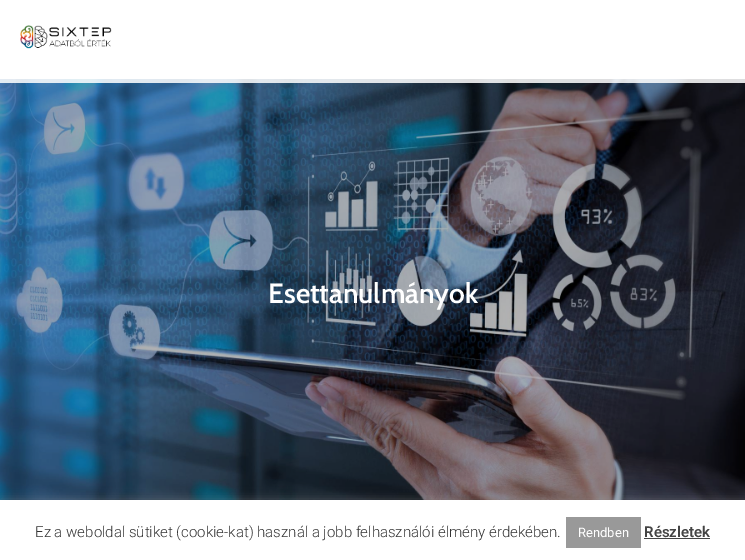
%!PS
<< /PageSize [745 560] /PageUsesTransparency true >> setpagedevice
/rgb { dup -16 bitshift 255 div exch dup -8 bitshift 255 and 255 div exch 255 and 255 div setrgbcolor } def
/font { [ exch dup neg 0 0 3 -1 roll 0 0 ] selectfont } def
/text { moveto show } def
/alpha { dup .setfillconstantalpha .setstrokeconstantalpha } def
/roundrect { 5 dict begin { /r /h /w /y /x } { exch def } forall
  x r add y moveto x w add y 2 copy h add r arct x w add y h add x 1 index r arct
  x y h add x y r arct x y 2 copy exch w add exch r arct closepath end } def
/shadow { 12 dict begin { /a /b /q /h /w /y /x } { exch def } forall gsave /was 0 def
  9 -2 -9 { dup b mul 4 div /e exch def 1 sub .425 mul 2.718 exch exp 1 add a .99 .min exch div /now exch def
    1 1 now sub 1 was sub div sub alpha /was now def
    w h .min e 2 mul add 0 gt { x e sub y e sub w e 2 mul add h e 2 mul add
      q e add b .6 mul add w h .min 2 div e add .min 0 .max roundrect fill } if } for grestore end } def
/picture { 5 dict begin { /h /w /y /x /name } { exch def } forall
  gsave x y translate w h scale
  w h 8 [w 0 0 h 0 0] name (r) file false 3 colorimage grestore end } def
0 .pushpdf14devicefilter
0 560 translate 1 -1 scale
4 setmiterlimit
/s1 { /Cabin-SemiBold 28 font 16#FFFFFF rgb } def
/s2 { /Roboto-Light 15 font 16#333333 rgb } def
/s3 { /Roboto-Regular 13 font 16#FFFFFF rgb } def
/s4 { /Roboto-SemiBold 15 font 16#444444 rgb } def
16#FFFFFF rgb
0 0 745 560 rectfill
(pic2.raw) 0 79 745 421 picture
0.86 alpha
0 79 745 4 rectfill
1 alpha
(pic1.raw) 20 25 92 24 picture
s1
(Esettanulmányok) 268 303 text
16#ACABAB rgb
0 499 745 60 0 5 0.3 shadow
16#FFFFFF rgb
0 500 745 60 rectfill
s2
(Ez a weboldal sütiket \(cookie-kat\) használ a jobb felhasználói élmény érdekében.) 35 537 text
16#999999 rgb
566 517 75 31 rectfill
s3
(Rendben) 578 537 text
s4
(Részletek) 644 537 text
644 538 66 1 rectfill
.poppdf14devicefilter showpage
